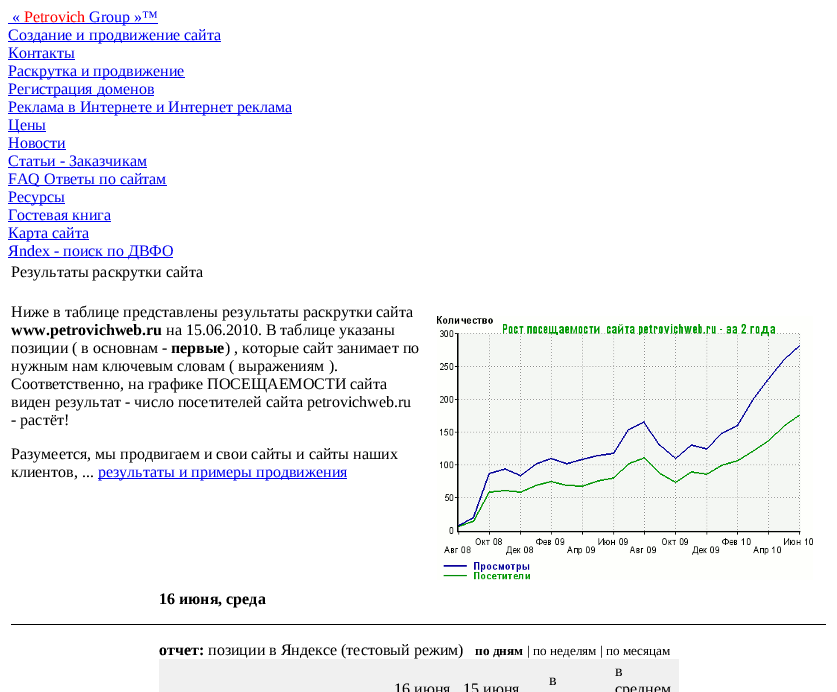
%!PS
<< /PageSize [837 692] >> setpagedevice
/rgb { dup -16 bitshift 255 div exch dup -8 bitshift 255 and 255 div exch 255 and 255 div setrgbcolor } def
/font { [ exch dup neg 0 0 3 -1 roll 0 0 ] selectfont } def
/text { moveto show } def
/picture { 5 dict begin { /h /w /y /x /name } { exch def } forall
  gsave x y translate w h scale
  w h 8 [w 0 0 h 0 0] name (r) file false 3 colorimage grestore end } def
0 692 translate 1 -1 scale
4 setmiterlimit
/s1 { /LiberationSerif-Regular 16 font 16#0000EE rgb } def
/s2 { /LiberationSerif-Regular 16 font 16#FF0000 rgb } def
/s3 { /LiberationSerif-Regular 16 font 16#0000FF rgb } def
/s4 { /LiberationSerif-Regular 16 font 16#000000 rgb } def
/s5 { /LiberationSerif-Bold 16 font 16#000000 rgb } def
/s6 { /LiberationSerif-Bold 13.25 font 16#000000 rgb } def
/s7 { /LiberationSerif-Regular 13.25 font 16#000000 rgb } def
16#FFFFFF rgb
0 0 837 692 rectfill
s1
(«) 12 22 text
8 23 150 1 rectfill
s2
(Petrovich) 24 22 text
s3
(Group) 89 22 text
s1
(»™) 134 22 text
8 41 213 1 rectfill
(Создание и продвижение сайта) 8 40 text
(Контакты) 8 58 text
8 59 67 1 rectfill
8 77 177 1 rectfill
(Раскрутка и продвижение) 8 76 text
8 95 146 1 rectfill
(Регистрация доменов) 8 94 text
8 113 284 1 rectfill
(Реклама в Интернете и Интернет реклама) 8 112 text
8 131 38 1 rectfill
(Цены) 8 130 text
(Новости) 8 148 text
8 149 58 1 rectfill
(Статьи - Заказчикам) 8 166 text
8 167 139 1 rectfill
8 185 159 1 rectfill
(FAQ Ответы по сайтам) 8 184 text
8 203 57 1 rectfill
(Ресурсы) 8 202 text
(Гостевая книга) 8 220 text
8 221 103 1 rectfill
8 239 81 1 rectfill
(Карта сайта) 8 238 text
8 257 165 1 rectfill
(Яndex - поиск по ДВФО) 8 256 text
s4
(Результаты раскрутки сайта) 11 277 text
(Ниже в таблице представлены результаты раскрутки сайта) 11 317 text
s5
(www.petrovichweb.ru) 11 335 text
s4
(на 15.06.2010. В таблице указаны) 166 335 text
(pic1.raw) 437 316 376 264 picture
(позиции \( в основнам -) 11 353 text
s5
(первые) 171 353 text
s4
(\) , которые сайт занимает по) 225 353 text
(нужным нам ключевым словам \( выражениям \).) 11 371 text
(Соответственно, на графике ПОСЕЩАЕМОСТИ сайта) 11 389 text
(виден результат - число посетителей сайта petrovichweb.ru) 11 407 text
(- растёт!) 11 425 text
(Разумеется, мы продвигаем и свои сайты и сайты наших) 11 459 text
(клиентов, ...) 11 477 text
16#0000EE rgb
98 478 249 1 rectfill
(результаты и примеры продвижения) 98 477 text
s5
(16 июня, среда) 159 604 text
11 624 815 1 rectfill
(отчет:) 159 655 text
s4
(позиции в Яндексе \(тестовый режим\)) 208 655 text
s6
(по дням) 475 655 text
s7
(| по неделям | по месяцам) 527 655 text
16#F0F0F0 rgb
159 659 520 33 rectfill
s4
(в) 549 685 text
(в) 615 676 text
(среднем) 615 694 text
(16 июня) 394 694 text
(15 июня) 463 694 text
showpage
